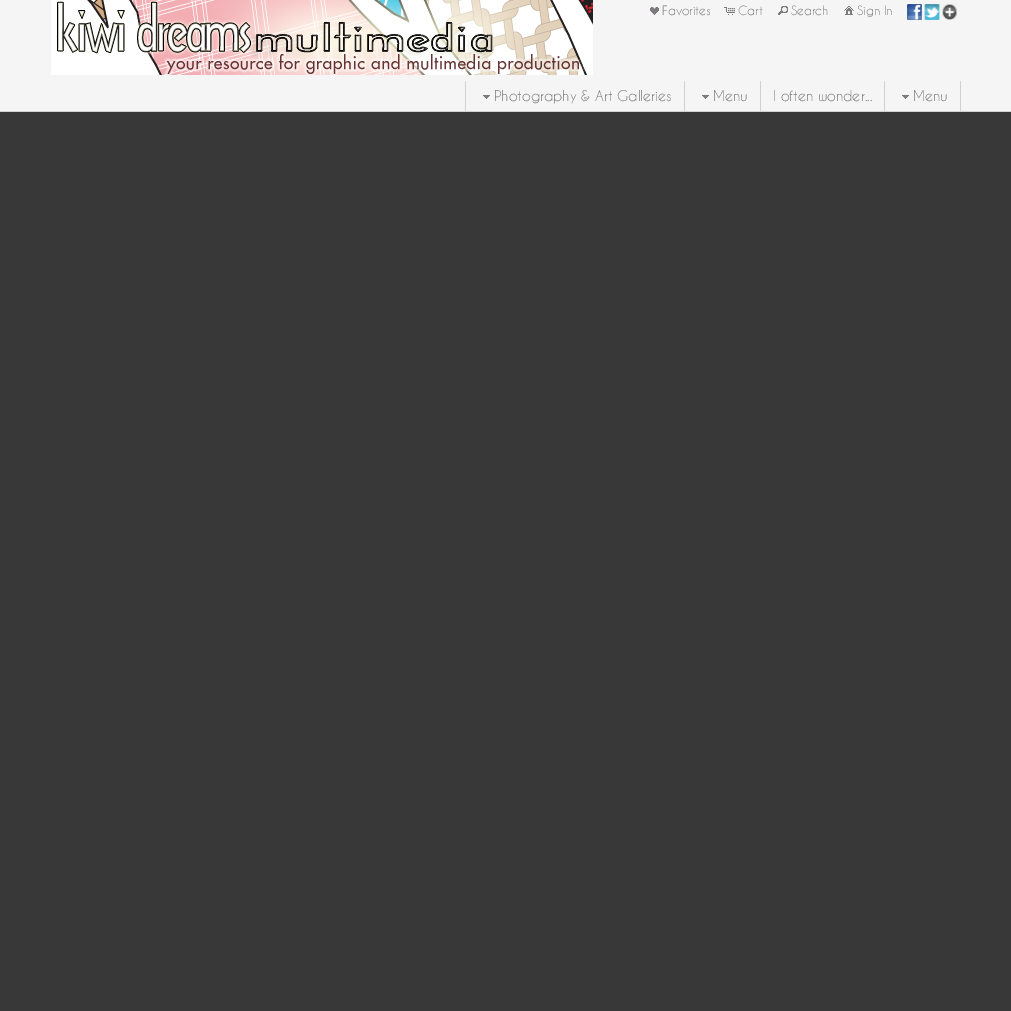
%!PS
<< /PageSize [1011 1011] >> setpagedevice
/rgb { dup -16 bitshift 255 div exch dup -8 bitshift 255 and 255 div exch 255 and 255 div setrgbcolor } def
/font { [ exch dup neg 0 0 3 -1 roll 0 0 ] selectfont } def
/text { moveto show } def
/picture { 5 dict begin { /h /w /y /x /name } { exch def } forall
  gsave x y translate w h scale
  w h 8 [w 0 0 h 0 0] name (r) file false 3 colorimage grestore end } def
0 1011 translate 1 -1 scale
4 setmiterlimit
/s1 { /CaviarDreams-Light 12 font 16#7A7A7A rgb } def
/s2 { /CaviarDreams-Light 14 font 16#7A7A7A rgb } def
16#383838 rgb
0 0 1011 1011 rectfill
16#F5F5F5 rgb
0 0 1011 111 rectfill
16#D1D1D1 rgb
0 111 1011 1 rectfill
(pic1.raw) 51 0 542 75 picture
(pic2.raw) 650 7 9 8 picture
s1
(Favorites) 662 15 text
(pic3.raw) 724 7 11 8 picture
(Cart) 738 15 text
(pic4.raw) 778 6 10 9 picture
(Search) 791 15 text
(pic5.raw) 844 6 10 9 picture
(Sign In) 857 15 text
(pic6.raw) 907 4 50 16 picture
16#D1D1D1 rgb
960 81 1 30 rectfill
465 81 1 30 rectfill
(pic7.raw) 483 95 7 4 picture
s2
(Photography & Art Galleries) 494 101 text
16#D1D1D1 rgb
684 81 1 30 rectfill
(pic7.raw) 702 95 7 4 picture
s2
(Menu) 713 101 text
16#D1D1D1 rgb
760 81 1 30 rectfill
s2
(I often wonder...) 773 101 text
16#D1D1D1 rgb
884 81 1 30 rectfill
(pic7.raw) 902 95 7 4 picture
s2
(Menu) 913 101 text
showpage
